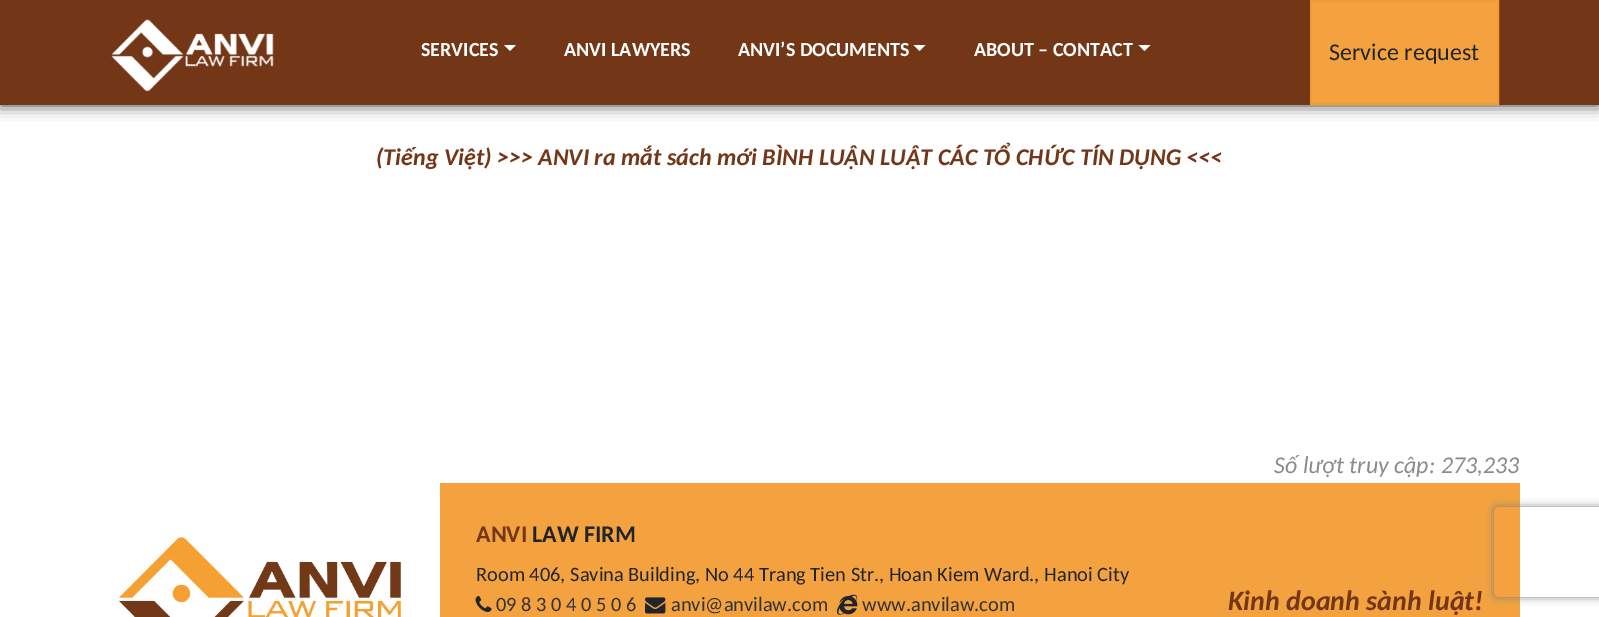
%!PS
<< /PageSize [1599 617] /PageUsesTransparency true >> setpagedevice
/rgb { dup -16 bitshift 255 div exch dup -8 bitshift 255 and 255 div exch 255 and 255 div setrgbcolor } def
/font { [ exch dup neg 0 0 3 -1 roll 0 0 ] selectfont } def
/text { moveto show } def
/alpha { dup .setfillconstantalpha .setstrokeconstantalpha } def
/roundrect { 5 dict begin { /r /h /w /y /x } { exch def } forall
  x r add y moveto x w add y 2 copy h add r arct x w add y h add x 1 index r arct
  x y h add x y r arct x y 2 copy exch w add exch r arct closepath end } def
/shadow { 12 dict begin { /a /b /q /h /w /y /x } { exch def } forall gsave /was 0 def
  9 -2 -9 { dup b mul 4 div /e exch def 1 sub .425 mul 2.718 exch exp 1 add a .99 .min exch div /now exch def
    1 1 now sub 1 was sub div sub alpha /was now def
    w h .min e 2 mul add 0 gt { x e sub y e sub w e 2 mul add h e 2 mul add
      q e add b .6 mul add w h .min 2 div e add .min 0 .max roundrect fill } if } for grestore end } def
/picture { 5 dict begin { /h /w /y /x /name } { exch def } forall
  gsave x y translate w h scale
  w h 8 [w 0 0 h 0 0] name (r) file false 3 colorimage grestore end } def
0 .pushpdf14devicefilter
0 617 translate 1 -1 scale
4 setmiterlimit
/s1 { /Carlito-Bold 20 font 16#FFFFFF rgb } def
/s2 { /Carlito-Regular 24 font 16#212529 rgb } def
/s3 { /Carlito-BoldItalic 24 font 16#733616 rgb } def
/s4 { /Carlito-Italic 24 font 16#8B8B8B rgb } def
/s5 { /Carlito-Bold 24 font 16#733616 rgb } def
/s6 { /Carlito-Bold 24 font 16#212529 rgb } def
/s7 { /Carlito-Regular 20.4 font 16#212529 rgb } def
/s8 { /Carlito-Regular 20.4 font 16#333333 rgb } def
/s9 { /Carlito-BoldItalic 28 font 16#733616 rgb } def
16#FFFFFF rgb
0 0 1599 617 rectfill
16#333333 rgb
0 0 1599 105 0 7.5 1 shadow
16#733616 rgb
0 0 1599 105 rectfill
(pic1.raw) 111 19 163 73 picture
s1
(SERVICES) 421 56 text
504 45 moveto 516 45 lineto 510 51 lineto closepath fill
(ANVI LAWYERS) 564 56 text
(ANVI’S DOCUMENTS) 738 56 text
913.5 45 moveto 925.5 45 lineto 919.5 51 lineto closepath fill
(ABOUT – CONTACT) 974 56 text
1138.5 45 moveto 1150.5 45 lineto 1144.5 51 lineto closepath fill
16#F4A240 rgb
1311 1 moveto 1498 1 lineto 1498 104 lineto 1311 104 lineto closepath gsave fill grestore
16#F09D33 rgb
2 setlinewidth
stroke
s2
(Service request) 1329 60 text
s3
(\(Tiếng Việt\) >>> ANVI ra mắt sách mới BÌNH LUẬN LUẬT CÁC TỔ CHỨC TÍN DỤNG <<<) 376 165 text
s4
(Số lượt truy cập: 273,233) 1274 473 text
(pic2.raw) 118 537 284 80 picture
16#F4A240 rgb
440 483 1080 134 rectfill
s5
(ANVI) 476 542 text
s6
(LAW FIRM) 532 542 text
s7
(Room 406, Savina Building, No 44 Trang Tien Str., Hoan Kiem Ward., Hanoi City) 476 581 text
(pic3.raw) 475 596 17 16 picture
s8
(09 8 3 0 4 0 5 0 6) 496 611 text
(pic4.raw) 645 597 21 17 picture
(anvi@anvilaw.com) 671 611 text
(pic5.raw) 837 594 21 21 picture
(www.anvilaw.com) 862 611 text
s9
(Kinh doanh sành luật!) 1228 610 text
gsave
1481 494 moveto 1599 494 lineto 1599 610 lineto 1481 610 lineto closepath 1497 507 moveto 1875 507 lineto 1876.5 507 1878 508.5 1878 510 curveto 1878 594 lineto 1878 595.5 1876.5 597 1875 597 curveto 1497 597 lineto 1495.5 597 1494 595.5 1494 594 curveto 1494 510 lineto 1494 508.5 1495.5 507 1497 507 curveto closepath eoclip newpath
16#808080 rgb
1494 507 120 90 3 4 1 shadow
grestore
.poppdf14devicefilter showpage
